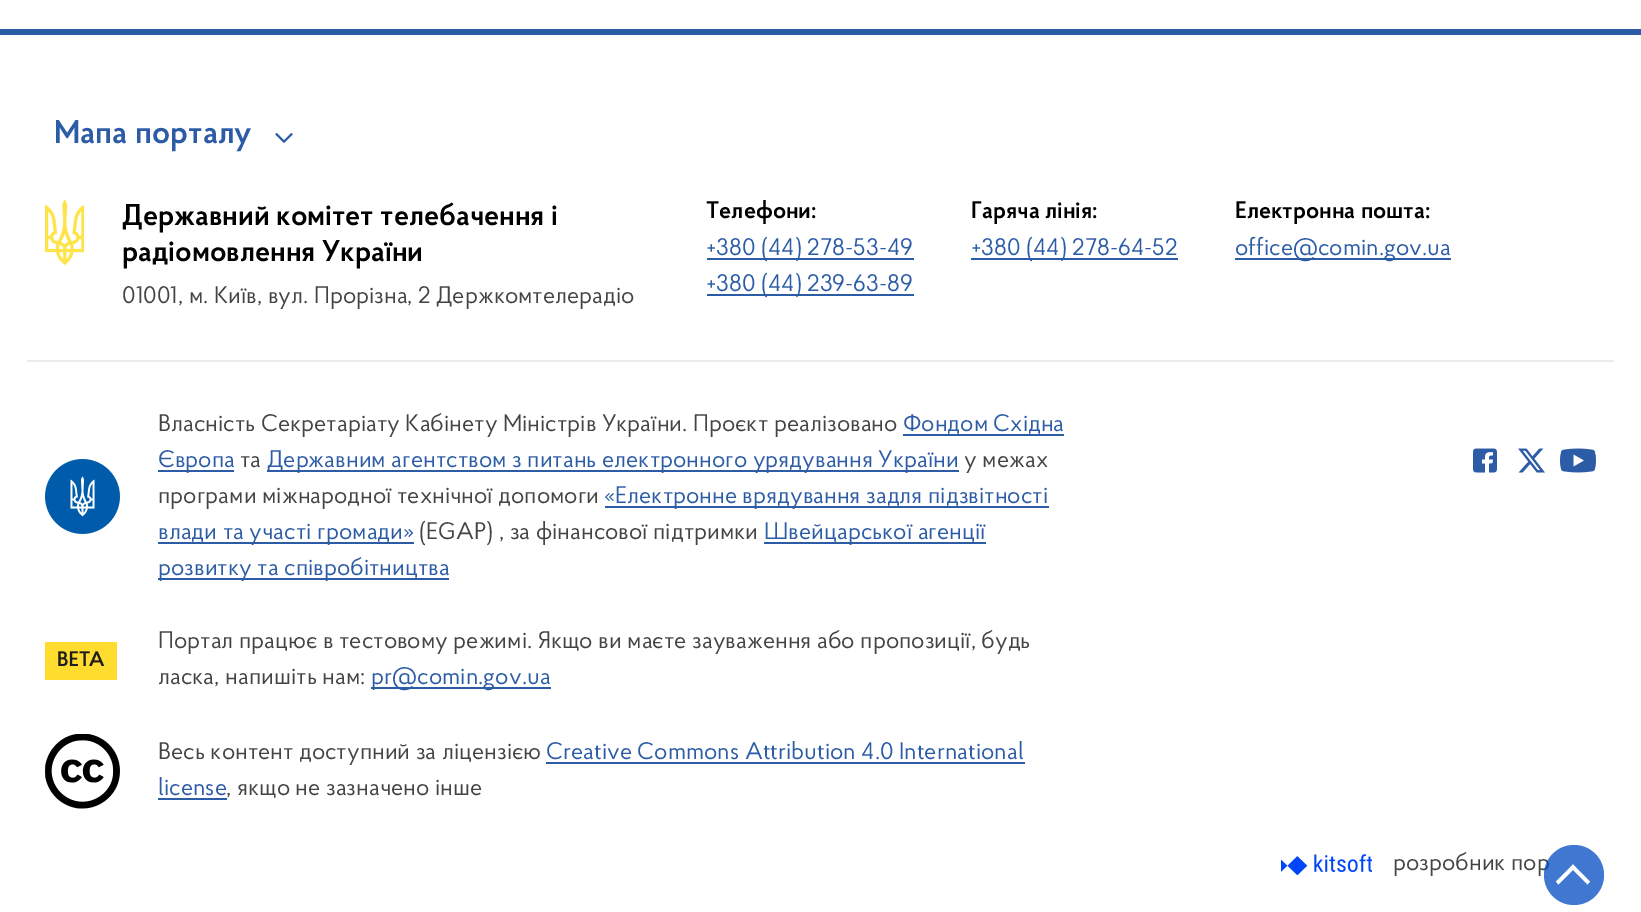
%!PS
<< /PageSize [1641 912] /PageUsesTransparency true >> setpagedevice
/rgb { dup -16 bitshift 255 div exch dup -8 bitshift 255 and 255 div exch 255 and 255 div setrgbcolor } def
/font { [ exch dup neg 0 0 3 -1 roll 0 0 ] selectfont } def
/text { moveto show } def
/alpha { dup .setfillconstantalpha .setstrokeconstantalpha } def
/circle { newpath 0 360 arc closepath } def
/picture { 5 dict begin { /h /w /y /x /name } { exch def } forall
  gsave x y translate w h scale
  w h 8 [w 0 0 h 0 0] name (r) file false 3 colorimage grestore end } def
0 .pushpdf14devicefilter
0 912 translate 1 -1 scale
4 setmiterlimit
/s1 { /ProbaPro-SemiBold 33 font 16#2D5CA6 rgb } def
/s2 { /ProbaPro-SemiBold 30 font 16#000000 rgb } def
/s3 { /ProbaPro-Regular 24 font 16#444444 rgb } def
/s4 { /ProbaPro-SemiBold 24 font 16#000000 rgb } def
/s5 { /ProbaPro-Regular 24 font 16#2D5CA6 rgb } def
16#FFFFFF rgb
0 0 1641 912 rectfill
16#2D5CA6 rgb
0 29 1641 6 rectfill
16#EBEBEB rgb
27 360 1587 2 rectfill
s1
(Мапа порталу) 54 143 text
(pic1.raw) 275 132 18 11 picture
(pic2.raw) 45 200 39 66 picture
s2
(Державний комітет телебачення і) 122 225 text
(радіомовлення України) 122 261 text
s3
(01001, м. Київ, вул. Прорізна, 2 Держкомтелерадіо) 122 303 text
s4
(Телефони:) 706 218 text
16#2D5CA6 rgb
707 258 207 2 rectfill
s5
(+380 \(44\) 278-53-49) 706 255 text
707 294 207 2 rectfill
(+380 \(44\) 239-63-89) 706 291 text
s4
(Гаряча лінія:) 971 218 text
16#2D5CA6 rgb
971 258 207 2 rectfill
s5
(+380 \(44\) 278-64-52) 971 255 text
s4
(Електронна пошта:) 1235 218 text
16#2D5CA6 rgb
1235 258 216 2 rectfill
s5
(office@comin.gov.ua) 1235 255 text
(pic3.raw) 45 459 75 75 picture
s3
(Власність Секретаріату Кабінету Міністрів України. Проєкт реалізовано) 158 431 text
s5
(Фондом Східна) 903 431 text
903 434 161 2 rectfill
158 470 76 2 rectfill
(Європа) 158 467 text
s3
(та) 240 467 text
16#2D5CA6 rgb
267 470 692 2 rectfill
(Державним агентством з питань електронного урядування України) 267 467 text
s3
(у межах) 964 467 text
(програми міжнародної технічної допомоги) 158 503 text
16#2D5CA6 rgb
605 506 444 2 rectfill
(«Електронне врядування задля підзвітності) 604 503 text
158 542 256 2 rectfill
(влади та участі громади») 158 539 text
s3
(\(EGAP\) , за фінансової підтримки) 419 539 text
16#2D5CA6 rgb
764 542 222 2 rectfill
(Швейцарської агенції) 764 539 text
158 578 291 2 rectfill
(розвитку та співробітництва) 158 575 text
(pic4.raw) 45 642 72 38 picture
s3
(Портал працює в тестовому режимі. Якщо ви маєте зауваження або пропозиції, будь) 158 648 text
(ласка, напишіть нам:) 158 684 text
16#2D5CA6 rgb
371 687 180 2 rectfill
(pr@comin.gov.ua) 371 684 text
(pic5.raw) 1473 448 24 25 picture
(pic6.raw) 1518 448 27 25 picture
(pic7.raw) 1560 448 36 25 picture
(pic8.raw) 45 734 75 75 picture
s3
(Весь контент доступний за ліцензією) 158 759 text
s5
(Creative Commons Attribution 4.0 International) 546 759 text
546 762 479 2 rectfill
(license) 158 795 text
158 798 69 2 rectfill
s3
(, якщо не зазначено інше) 226 795 text
(pic9.raw) 1281 854 91 21 picture
(розробник пор) 1393 870 text
0.75 alpha
16#004BC1 rgb
1574 875 30 circle fill
1 alpha
16#FFFFFF rgb
1570.5 867.5 moveto 1573 864.5 lineto 1590 881.5 lineto 1587.5 884.5 lineto closepath fill
1573 864.5 moveto 1575.5 867.5 lineto 1558.5 884.5 lineto 1556 881.5 lineto closepath fill
.poppdf14devicefilter showpage
